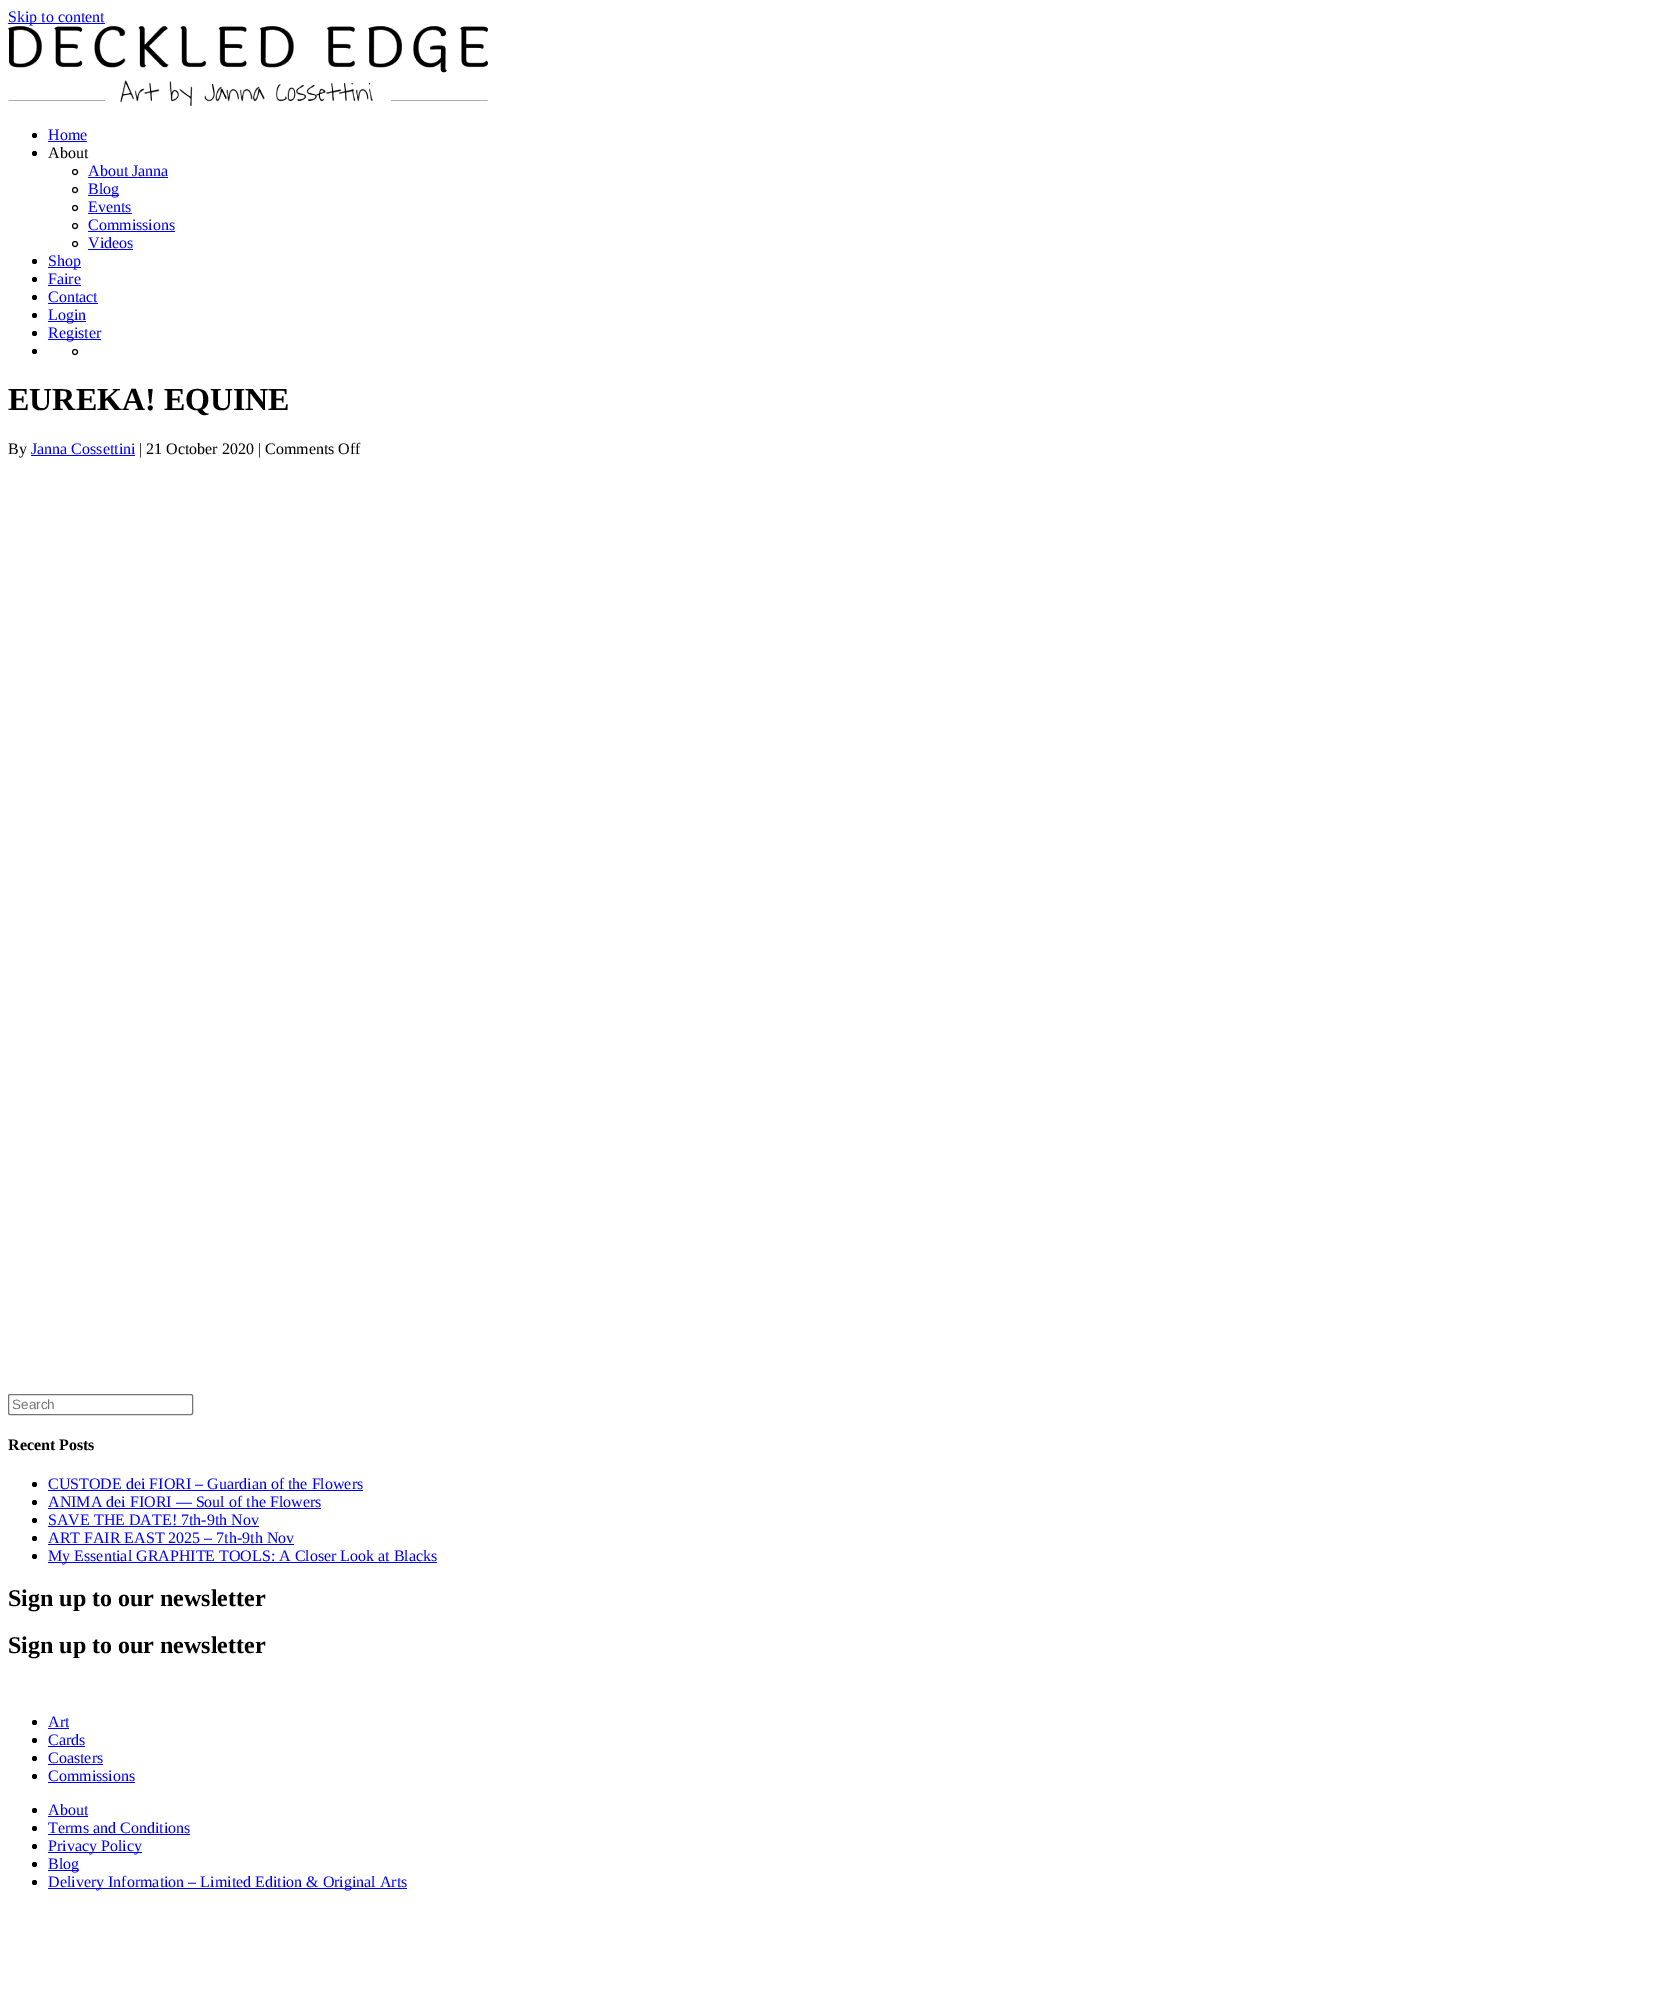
%!PS
<< /PageSize [1674 2000] >> setpagedevice
/rgb { dup -16 bitshift 255 div exch dup -8 bitshift 255 and 255 div exch 255 and 255 div setrgbcolor } def
/font { [ exch dup neg 0 0 3 -1 roll 0 0 ] selectfont } def
/text { moveto show } def
/circle { newpath 0 360 arc closepath } def
/roundrect { 5 dict begin { /r /h /w /y /x } { exch def } forall
  x r add y moveto x w add y 2 copy h add r arct x w add y h add x 1 index r arct
  x y h add x y r arct x y 2 copy exch w add exch r arct closepath end } def
/picture { 5 dict begin { /h /w /y /x /name } { exch def } forall
  gsave x y translate w h scale
  w h 8 [w 0 0 h 0 0] name (r) file false 3 colorimage grestore end } def
0 2000 translate 1 -1 scale
4 setmiterlimit
/s1 { /LiberationSerif-Regular 16 font 16#0000EE rgb } def
/s2 { /LiberationSerif-Regular 16 font 16#000000 rgb } def
/s3 { /LiberationSerif-Bold 32 font 16#000000 rgb } def
/s4 { /LiberationSans-Regular 13.5 font 16#757575 rgb } def
/s5 { /LiberationSerif-Bold 16 font 16#000000 rgb } def
/s6 { /LiberationSerif-Bold 24 font 16#000000 rgb } def
16#FFFFFF rgb
0 0 1674 2000 rectfill
16#0000EE rgb
8 23 97 1 rectfill
s1
(Skip to content) 8 22 text
(pic1.raw) 8 26 480 80 picture
16#000000 rgb
34.5 135.5 2.5 circle fill
s1
(Home) 48 140 text
48 141 39 1 rectfill
16#000000 rgb
34.5 153.5 2.5 circle fill
(About) 48 158 text
75 172 2.5 circle stroke
s1
(About Janna) 88 176 text
88 177 80 1 rectfill
16#000000 rgb
75 190 2.5 circle stroke
16#0000EE rgb
88 195 31 1 rectfill
(Blog) 88 194 text
16#000000 rgb
75 208 2.5 circle stroke
s1
(Events) 88 212 text
88 213 44 1 rectfill
16#000000 rgb
75 226 2.5 circle stroke
s1
(Commissions) 88 230 text
88 231 87 1 rectfill
16#000000 rgb
75 244 2.5 circle stroke
s1
(Videos) 88 248 text
88 249 45 1 rectfill
16#000000 rgb
34.5 261.5 2.5 circle fill
16#0000EE rgb
48 267 33 1 rectfill
(Shop) 48 266 text
16#000000 rgb
34.5 279.5 2.5 circle fill
s1
(Faire) 48 284 text
48 285 33 1 rectfill
16#000000 rgb
34.5 297.5 2.5 circle fill
s1
(Contact) 48 302 text
48 303 50 1 rectfill
16#000000 rgb
34.5 315.5 2.5 circle fill
16#0000EE rgb
48 321 38 1 rectfill
(Login) 48 320 text
16#000000 rgb
34.5 333.5 2.5 circle fill
16#0000EE rgb
48 339 53 1 rectfill
(Register) 48 338 text
16#000000 rgb
34.5 351.5 2.5 circle fill
75 352 2.5 circle stroke
s3
(EUREKA! EQUINE) 8 410 text
s2
(By) 8 454 text
s1
(Janna Cossettini) 31 454 text
31 455 104 1 rectfill
s2
(| 21 October 2020 | Comments Off) 139 454 text
16#767676 rgb
8.5 1394.5 184 20 1.5 roundrect stroke
s4
(Search) 12 1409 text
s5
(Recent Posts) 8 1450 text
34.5 1484.5 2.5 circle fill
s1
(CUSTODE dei FIORI – Guardian of the Flowers) 48 1489 text
48 1490 315 1 rectfill
16#000000 rgb
34.5 1502.5 2.5 circle fill
s1
(ANIMA dei FIORI — Soul of the Flowers) 48 1507 text
48 1508 273 1 rectfill
16#000000 rgb
34.5 1520.5 2.5 circle fill
s1
(SAVE THE DATE! 7th-9th Nov) 48 1525 text
48 1526 211 1 rectfill
16#000000 rgb
34.5 1538.5 2.5 circle fill
s1
(ART FAIR EAST 2025 – 7th-9th Nov) 48 1543 text
48 1544 246 1 rectfill
16#000000 rgb
34.5 1556.5 2.5 circle fill
16#0000EE rgb
48 1562 389 1 rectfill
(My Essential GRAPHITE TOOLS: A Closer Look at Blacks) 48 1561 text
s6
(Sign up to our newsletter) 8 1606 text
(Sign up to our newsletter) 8 1653 text
34.5 1722.5 2.5 circle fill
s1
(Art) 48 1727 text
48 1728 21 1 rectfill
16#000000 rgb
34.5 1740.5 2.5 circle fill
s1
(Cards) 48 1745 text
48 1746 37 1 rectfill
16#000000 rgb
34.5 1758.5 2.5 circle fill
s1
(Coasters) 48 1763 text
48 1764 55 1 rectfill
16#000000 rgb
34.5 1776.5 2.5 circle fill
s1
(Commissions) 48 1781 text
48 1782 87 1 rectfill
16#000000 rgb
34.5 1810.5 2.5 circle fill
s1
(About) 48 1815 text
48 1816 40 1 rectfill
16#000000 rgb
34.5 1828.5 2.5 circle fill
s1
(Terms and Conditions) 48 1833 text
48 1834 142 1 rectfill
16#000000 rgb
34.5 1846.5 2.5 circle fill
16#0000EE rgb
48 1852 94 1 rectfill
(Privacy Policy) 48 1851 text
16#000000 rgb
34.5 1864.5 2.5 circle fill
16#0000EE rgb
48 1870 31 1 rectfill
(Blog) 48 1869 text
16#000000 rgb
34.5 1882.5 2.5 circle fill
16#0000EE rgb
48 1888 359 1 rectfill
(Delivery Information – Limited Edition & Original Arts) 48 1887 text
showpage
